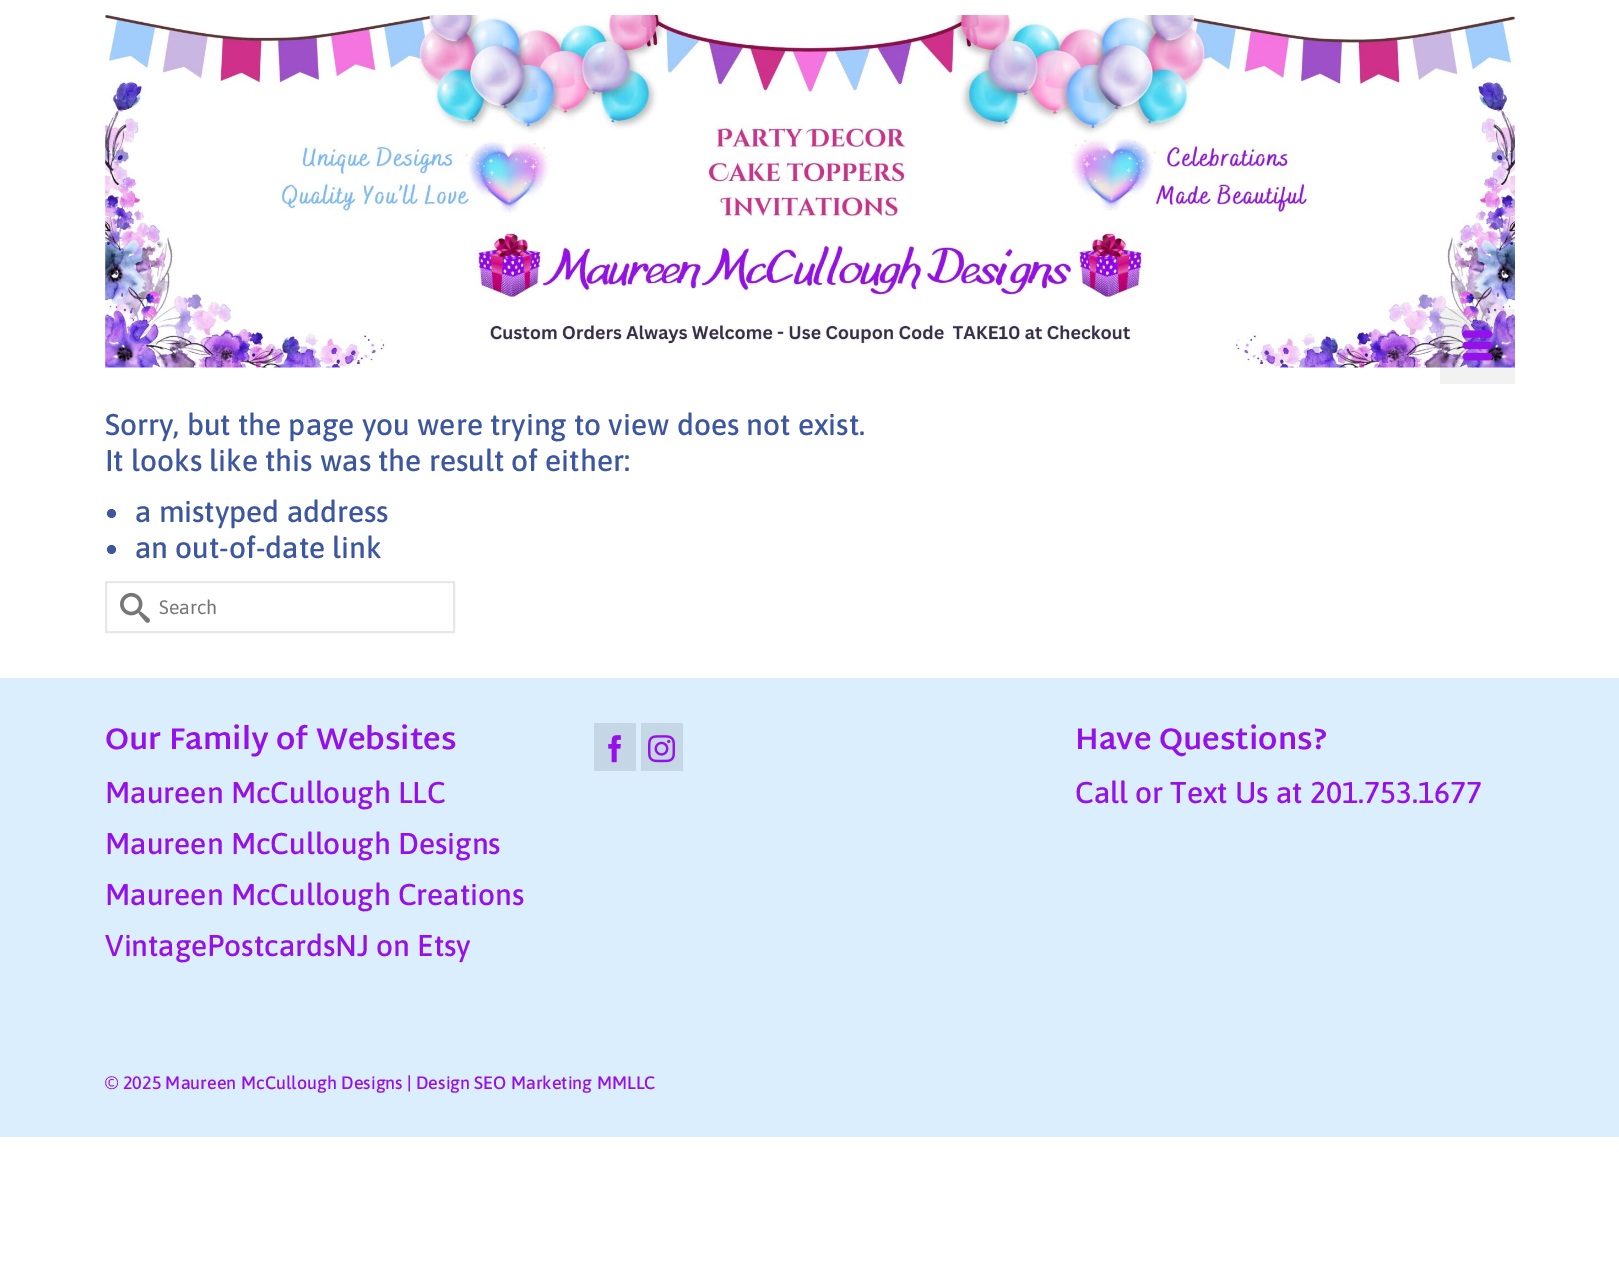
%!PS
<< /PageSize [1619 1269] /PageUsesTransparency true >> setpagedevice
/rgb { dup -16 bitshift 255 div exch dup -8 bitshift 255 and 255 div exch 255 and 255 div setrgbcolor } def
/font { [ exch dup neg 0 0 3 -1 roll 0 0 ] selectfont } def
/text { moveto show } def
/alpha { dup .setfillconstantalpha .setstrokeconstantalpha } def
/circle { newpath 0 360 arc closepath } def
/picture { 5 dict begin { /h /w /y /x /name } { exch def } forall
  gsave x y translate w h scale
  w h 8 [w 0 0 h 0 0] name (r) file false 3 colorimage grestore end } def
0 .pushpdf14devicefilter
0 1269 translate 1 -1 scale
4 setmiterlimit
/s1 { /Asap-Medium 30 font 16#3C57A0 rgb } def
/s2 { /Asap-Regular 19.5 font 16#757575 rgb } def
/s3 { /MartelSans-Bold 30 font 16#9510E9 rgb } def
/s4 { /Asap-Medium 30 font 16#9510E9 rgb } def
/s5 { /Asap-Medium 18 font 16#9510E9 rgb } def
16#FFFFFF rgb
0 0 1619 1269 rectfill
(pic1.raw) 105 15 1410 353 picture
0.05 alpha
16#000000 rgb
1440 309 75 75 rectfill
1 alpha
(pic2.raw) 1462 330 31 31 picture
s1
(Sorry, but the page you were trying to view does not exist.) 105 435 text
(It looks like this was the result of either:) 105 471 text
111.5 513.5 4.5 circle fill
(a mistyped address) 135 522 text
111.5 549.5 4.5 circle fill
(an out-of-date link) 135 558 text
16#E7E7E7 rgb
2 setlinewidth
106 582 348 50 rectstroke
(pic3.raw) 120 592 30 31 picture
s2
(Search) 159 614 text
16#DBEEFE rgb
0 678 1619 459 rectfill
s3
(Our Family of Websites) 105 749 text
s4
(Maureen McCullough LLC) 105 803 text
(Maureen McCullough Designs) 105 854 text
(Maureen McCullough Creations) 105 905 text
(VintagePostcardsNJ on Etsy) 105 956 text
16#C5D6E5 rgb
594 723 42 48 rectfill
(pic4.raw) 608 735 13 28 picture
641 723 42 48 rectfill
(pic5.raw) 648 735 27 28 picture
s3
(Have Questions?) 1075 749 text
s4
(Call or Text Us at 201.753.1677) 1075 803 text
s5
(© 2025 Maureen McCullough Designs | Design SEO Marketing MMLLC) 105 1089 text
.poppdf14devicefilter showpage
